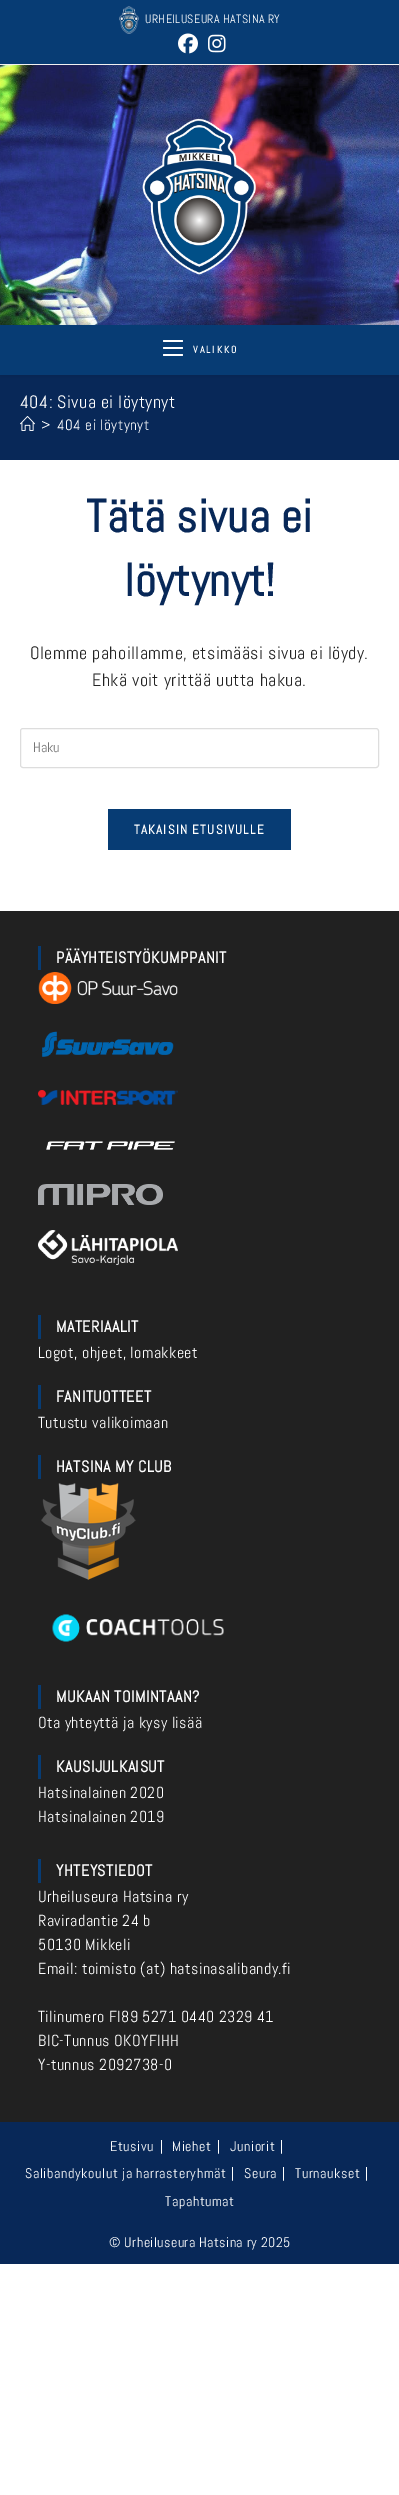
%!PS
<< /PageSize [399 2495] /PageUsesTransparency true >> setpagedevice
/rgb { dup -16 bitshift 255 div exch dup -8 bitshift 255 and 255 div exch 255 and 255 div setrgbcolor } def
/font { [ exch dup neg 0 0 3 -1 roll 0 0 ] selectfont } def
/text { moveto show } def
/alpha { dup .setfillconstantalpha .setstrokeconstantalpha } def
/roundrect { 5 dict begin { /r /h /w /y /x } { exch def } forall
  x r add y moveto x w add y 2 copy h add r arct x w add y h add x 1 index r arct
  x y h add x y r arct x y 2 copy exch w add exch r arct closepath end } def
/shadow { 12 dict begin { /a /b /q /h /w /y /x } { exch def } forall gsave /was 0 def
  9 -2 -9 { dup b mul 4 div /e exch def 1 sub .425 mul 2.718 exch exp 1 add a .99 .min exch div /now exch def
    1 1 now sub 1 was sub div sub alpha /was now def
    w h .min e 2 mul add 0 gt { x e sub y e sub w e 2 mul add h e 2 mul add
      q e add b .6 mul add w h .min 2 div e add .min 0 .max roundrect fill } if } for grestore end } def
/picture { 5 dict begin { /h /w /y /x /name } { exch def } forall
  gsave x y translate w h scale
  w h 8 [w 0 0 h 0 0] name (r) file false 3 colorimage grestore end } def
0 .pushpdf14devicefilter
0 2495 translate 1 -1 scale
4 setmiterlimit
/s1 { /Abel-Regular 14 font 16#757575 rgb } def
16#FFFFFF rgb
0 0 399 2495 rectfill
16#073C74 rgb
0 0 399 64 rectfill
16#F1F1F1 rgb
0 64 399 1 rectfill
(pic1.raw) 119 6 20 28 picture
/Abel-Regular 12 font
16#FFFFFF rgb
145 23 moveto 0.4 0 (URHEILUSEURA HATSINA RY) ashow
(pic2.raw) 178 33 20 21 picture
(pic3.raw) 208 34 18 19 picture
(pic4.raw) 0 65 399 260 picture
(pic5.raw) 142 118 114 157 picture
16#082858 rgb
0 375 399 85 rectfill
16#000000 rgb
0 326 399 50 0 2.5 0.1 shadow
16#073C74 rgb
0 325 399 50 rectfill
16#FFFFFF rgb
163 347 20 2 1 roundrect fill
163 340 20 2 1 roundrect fill
163 354 20 2 1 roundrect fill
/Abel-Bold 10 font
193 353 moveto 2 0 (VALIKKO) ashow
/Abel-Regular 18 font
20 408 moveto 0.4 0 (404: Sivua ei löytynyt) ashow
(pic6.raw) 20 416 15 15 picture
/Abel-Regular 15 font
41 430 moveto 0.5 0 (>) ashow
57 430 moveto 0.5 0 (404 ei löytynyt) ashow
/Abel-Bold 46 font
16#082858 rgb
86 532 moveto 0.4 0 (Tätä sivua ei) ashow
124 596 moveto 0.4 0 (löytynyt!) ashow
/Abel-Regular 18 font
16#232323 rgb
30 659 moveto 0.4 0 (Olemme pahoillamme, etsimääsi sivua ei löydy.) ashow
92 686 moveto 0.4 0 (Ehkä voit yrittää uutta hakua.) ashow
16#DDDDDD rgb
20.5 728.5 358 39 2.5 roundrect stroke
s1
(Haku) 33 752 text
16#073C74 rgb
108 809 183 41 rectfill
/Abel-Bold 13 font
16#FFFFFF rgb
134 834 moveto 1.25 0 (TAKAISIN ETUSIVULLE) ashow
16#212121 rgb
0 911 399 1211 rectfill
16#073C74 rgb
38 946 3 24 rectfill
/Abel-Bold 16 font
16#FFFFFF rgb
56 963 moveto 0.5 0 (PÄÄYHTEISTYÖKUMPPANIT) ashow
(pic7.raw) 38 972 140 32 picture
(pic8.raw) 42 1031 132 26 picture
(pic9.raw) 38 1090 140 15 picture
(pic10.raw) 46 1141 129 9 picture
(pic11.raw) 38 1184 125 21 picture
(pic12.raw) 38 1230 140 35 picture
16#073C74 rgb
38 1315 3 24 rectfill
16#FFFFFF rgb
56 1332 moveto 0.5 0 (MATERIAALIT) ashow
/Abel-Regular 16 font
38 1358 moveto 0.4 0 (Logot, ohjeet, lomakkeet) ashow
16#073C74 rgb
38 1385 3 24 rectfill
/Abel-Bold 16 font
16#FFFFFF rgb
56 1402 moveto 0.5 0 (FANITUOTTEET) ashow
/Abel-Regular 16 font
38 1428 moveto 0.4 0 (Tutustu valikoimaan) ashow
16#073C74 rgb
38 1455 3 24 rectfill
/Abel-Bold 16 font
16#FFFFFF rgb
56 1472 moveto 0.5 0 (HATSINA MY CLUB) ashow
(pic13.raw) 41 1483 95 97 picture
(pic14.raw) 52 1614 172 28 picture
16#073C74 rgb
38 1685 3 24 rectfill
16#FFFFFF rgb
56 1702 moveto 0.5 0 (MUKAAN TOIMINTAAN?) ashow
/Abel-Regular 16 font
38 1728 moveto 0.4 0 (Ota yhteyttä ja kysy lisää) ashow
16#073C74 rgb
38 1755 3 24 rectfill
/Abel-Bold 16 font
16#FFFFFF rgb
56 1772 moveto 0.5 0 (KAUSIJULKAISUT) ashow
/Abel-Regular 16 font
38 1798 moveto 0.4 0 (Hatsinalainen 2020) ashow
38 1822 moveto 0.4 0 (Hatsinalainen 2019) ashow
16#073C74 rgb
38 1859 3 24 rectfill
/Abel-Bold 16 font
16#FFFFFF rgb
56 1876 moveto 0.5 0 (YHTEYSTIEDOT) ashow
/Abel-Regular 16 font
38 1902 moveto 0.4 0 (Urheiluseura Hatsina ry) ashow
38 1926 moveto 0.4 0 (Raviradantie 24 b) ashow
38 1950 moveto 0.4 0 (50130 Mikkeli) ashow
38 1974 moveto 0.4 0 (Email: toimisto \(at\) hatsinasalibandy.fi) ashow
38 2022 moveto 0.4 0 (Tilinumero FI89 5271 0440 2329 41) ashow
38 2046 moveto 0.4 0 (BIC-Tunnus OKOYFIHH) ashow
38 2070 moveto 0.4 0 (Y-tunnus 2092738-0) ashow
16#082858 rgb
0 2122 399 142 rectfill
/Abel-Regular 14 font
16#FFFFFF rgb
110 2151 moveto 0.6 0 (Etusivu) ashow
160 2151 moveto 0.6 0 (|) ashow
172 2151 moveto 0.6 0 (Miehet) ashow
217 2151 moveto 0.6 0 (|) ashow
230 2151 moveto 0.6 0 (Juniorit) ashow
280 2151 moveto 0.6 0 (|) ashow
25 2178 moveto 0.6 0 (Salibandykoulut ja harrasteryhmät) ashow
231 2178 moveto 0.6 0 (|) ashow
244 2178 moveto 0.6 0 (Seura) ashow
282 2178 moveto 0.6 0 (|) ashow
295 2178 moveto 0.6 0 (Turnaukset) ashow
365 2178 moveto 0.6 0 (|) ashow
165 2206 moveto 0.6 0 (Tapahtumat) ashow
109 2247 moveto 0.4 0 (© Urheiluseura Hatsina ry 2025) ashow
.poppdf14devicefilter showpage
